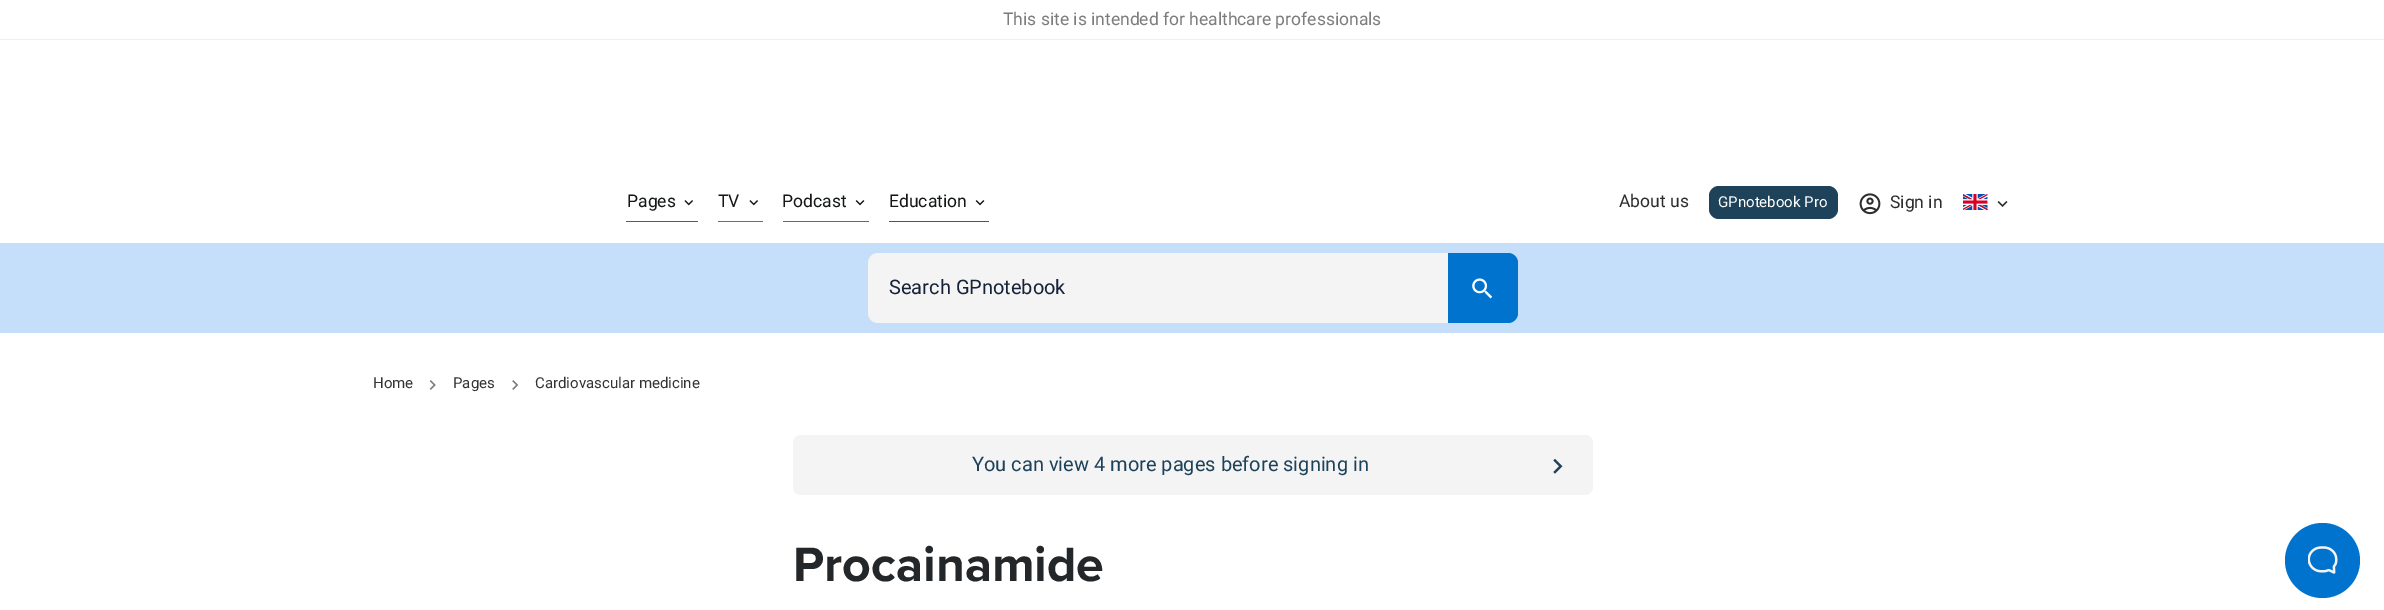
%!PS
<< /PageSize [2384 610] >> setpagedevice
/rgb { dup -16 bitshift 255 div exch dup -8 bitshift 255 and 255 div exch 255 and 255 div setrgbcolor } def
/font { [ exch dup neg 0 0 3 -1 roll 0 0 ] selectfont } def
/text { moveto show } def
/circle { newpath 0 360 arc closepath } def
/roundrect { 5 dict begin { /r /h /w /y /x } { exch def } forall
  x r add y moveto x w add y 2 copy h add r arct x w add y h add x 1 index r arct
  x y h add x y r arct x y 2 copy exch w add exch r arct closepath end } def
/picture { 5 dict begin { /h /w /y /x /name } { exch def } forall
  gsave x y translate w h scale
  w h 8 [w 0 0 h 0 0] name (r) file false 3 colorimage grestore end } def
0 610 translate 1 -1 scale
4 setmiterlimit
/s1 { /Roboto-Regular 17.5 font 16#7D7D7D rgb } def
/s2 { /Roboto-Regular 17.5 font 16#141618 rgb } def
/s3 { /Roboto-Regular 17.5 font 16#2C2D2F rgb } def
/s4 { /Roboto-Regular 15 font 16#FFFFFF rgb } def
/s5 { /Roboto-Regular 20 font 16#152237 rgb } def
/s6 { /Roboto-Regular 15 font 16#333333 rgb } def
/s7 { /Roboto-Regular 20 font 16#1D4259 rgb } def
/s8 { /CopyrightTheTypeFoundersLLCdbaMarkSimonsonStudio-Bold 50 font 16#24272A rgb } def
16#FFFFFF rgb
0 0 2384 610 rectfill
16#F0F0F0 rgb
0 39 2384 1 rectfill
s1
(This site is intended for healthcare professionals) 1003 25 text
16#0073CF rgb
626 221 72 1 rectfill
s2
(Pages) 627 207 text
(pic1.raw) 684 200 9 6 picture
16#D94625 rgb
718 221 45 1 rectfill
s2
(TV) 718 207 text
(pic1.raw) 749 200 9 6 picture
16#1B8C6C rgb
783 221 86 1 rectfill
s2
(Podcast) 782 207 text
(pic2.raw) 855 200 10 6 picture
16#653AAC rgb
889 221 100 1 rectfill
s2
(Education) 889 207 text
(pic2.raw) 975 200 10 6 picture
s3
(About us) 1619 207 text
16#1D4259 rgb
1709 186 129 33 10 roundrect fill
s4
(GPnotebook Pro) 1718 207 text
(pic3.raw) 1859 193 22 22 picture
s3
(Sign in) 1890 208 text
(pic4.raw) 1963 194 25 16 picture
(pic5.raw) 1997 201 11 6 picture
16#C5DEF9 rgb
0 243 2384 90 rectfill
16#F4F4F4 rgb
878 253 moveto 1448 253 lineto 1448 323 lineto 878 323 lineto 872.5 323 868 318.5 868 313 curveto 868 263 lineto 868 257.5 872.5 253 878 253 curveto closepath fill
s5
(Search GPnotebook) 889 294 text
16#0073CF rgb
1448 253 moveto 1508 253 lineto 1513.5 253 1518 257.5 1518 263 curveto 1518 313 lineto 1518 318.5 1513.5 323 1508 323 curveto 1448 323 lineto closepath fill
(pic6.raw) 1472 278 21 21 picture
s6
(Home) 373 388 text
(pic7.raw) 429 380 7 10 picture
(Pages) 453 388 text
(pic8.raw) 512 380 7 10 picture
(Cardiovascular medicine) 535 388 text
16#F4F4F4 rgb
793 435 800 60 8 roundrect fill
s7
(You can view 4 more pages before signing in) 972 471 text
(pic9.raw) 1553 458 10 16 picture
s8
(Procainamide) 793 581 text
16#0073CF rgb
2322.5 560.5 37.5 circle fill
(pic10.raw) 2308 546 30 28 picture
showpage
